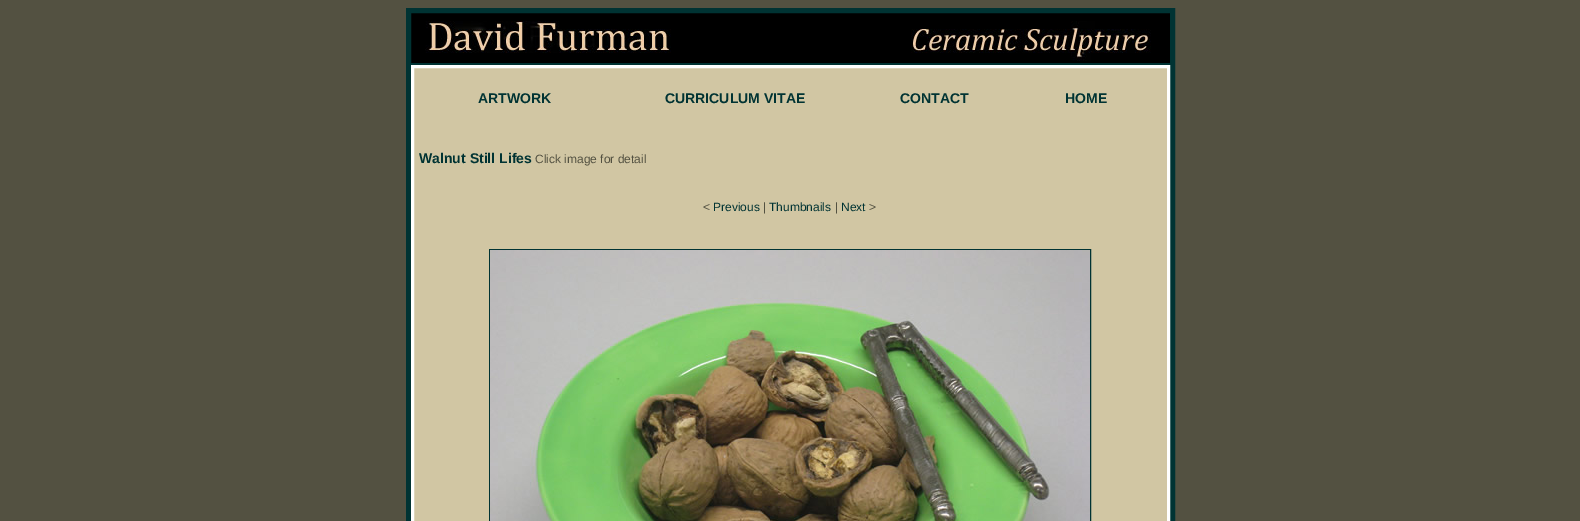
%!PS
<< /PageSize [1580 521] >> setpagedevice
/rgb { dup -16 bitshift 255 div exch dup -8 bitshift 255 and 255 div exch 255 and 255 div setrgbcolor } def
/font { [ exch dup neg 0 0 3 -1 roll 0 0 ] selectfont } def
/text { moveto show } def
/picture { 5 dict begin { /h /w /y /x /name } { exch def } forall
  gsave x y translate w h scale
  w h 8 [w 0 0 h 0 0] name (r) file false 3 colorimage grestore end } def
0 521 translate 1 -1 scale
4 setmiterlimit
/s1 { /LiberationSans-Bold 14 font 16#003333 rgb } def
/s2 { /LiberationSans-Regular 12 font 16#535141 rgb } def
/s3 { /LiberationSans-Regular 12 font 16#003333 rgb } def
16#535141 rgb
0 0 1580 521 rectfill
16#003333 rgb
4 setlinewidth
408 10 765 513 rectstroke
16#000000 rgb
410.5 12.5 moveto 1170.5 12.5 lineto 1170.5 63.5 lineto 410.5 63.5 lineto closepath gsave fill grestore
16#003333 rgb
1 setlinewidth
stroke
(pic1.raw) 425 21 726 40 picture
410.5 64.5 760 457 rectstroke
16#FFFFFF rgb
2 setlinewidth
412 66 757 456 rectstroke
16#D1C6A3 rgb
413.5 67.5 moveto 1167.5 67.5 lineto 1167.5 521.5 lineto 413.5 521.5 lineto closepath gsave fill grestore
16#FFFFFF rgb
1 setlinewidth
stroke
s1
(ARTWORK) 478 103 text
(CURRICULUM VITAE) 665 103 text
(CONTACT) 900 103 text
(HOME) 1065 103 text
(Walnut Still Lifes) 419 163 text
s2
(Click image for detail) 535 163 text
(<) 703 211 text
s3
(Previous) 713 211 text
s2
(|) 763 211 text
s3
(Thumbnails) 769 211 text
s2
(|) 835 211 text
s3
(Next) 841 211 text
s2
(>) 869 211 text
16#003333 rgb
489.5 249.5 601 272 rectstroke
(pic2.raw) 490 250 600 271 picture
showpage
